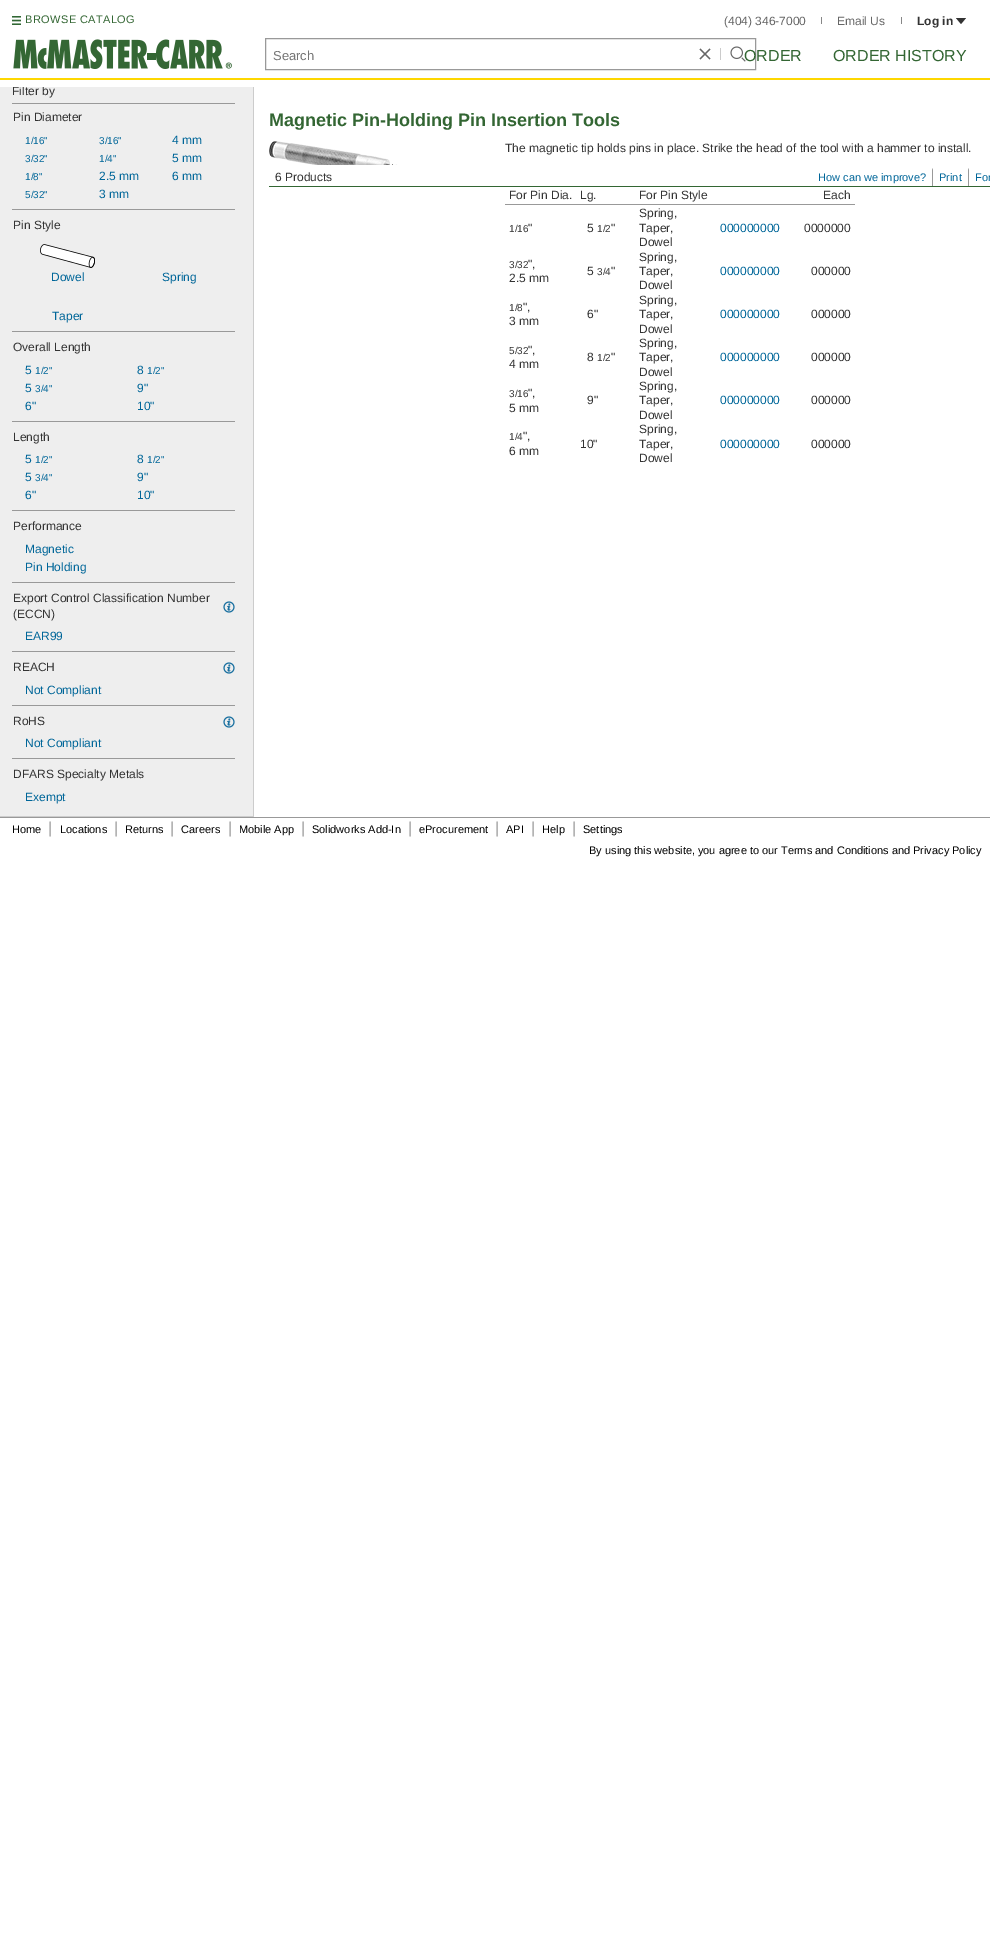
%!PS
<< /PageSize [990 1935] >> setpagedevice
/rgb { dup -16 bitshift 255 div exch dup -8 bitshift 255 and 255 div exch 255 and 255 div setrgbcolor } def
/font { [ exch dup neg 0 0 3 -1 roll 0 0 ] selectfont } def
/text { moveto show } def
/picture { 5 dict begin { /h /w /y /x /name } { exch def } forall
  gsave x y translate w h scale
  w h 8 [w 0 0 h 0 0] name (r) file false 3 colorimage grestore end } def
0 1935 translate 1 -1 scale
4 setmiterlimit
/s1 { /LiberationSans-Regular 12 font 16#333333 rgb } def
/s2 { /LiberationSans-Regular 12 font 16#666666 rgb } def
/s3 { /LiberationSans-Bold 12 font 16#333333 rgb } def
/s4 { /LiberationSans-Regular 13 font 16#757575 rgb } def
/s5 { /LiberationSans-Regular 16 font 16#336633 rgb } def
/s6 { /LiberationSans-Regular 10 font 16#006699 rgb } def
/s7 { /LiberationSans-Regular 12 font 16#006699 rgb } def
/s8 { /LiberationSans-Bold 18 font 16#336633 rgb } def
/s9 { /LiberationSans-Regular 10 font 16#333333 rgb } def
/s10 { /LiberationSans-Regular 11 font 16#006699 rgb } def
/s11 { /LiberationSans-Regular 11 font 16#000000 rgb } def
/s12 { /LiberationSans-Regular 16 font 16#999999 rgb } def
16#FFFFFF rgb
0 0 990 1935 rectfill
16#CCCCCC rgb
253 80 1 737 rectfill
16#EEEEEE rgb
0 87 253 729 rectfill
s1
(Filter by) 12 95 text
16#FFFFFF rgb
13 80 241 7 rectfill
16#FED700 rgb
0 78 990 2 rectfill
(pic1.raw) 12 16 9 9 picture
/LiberationSans-Regular 11 font
16#336633 rgb
25 23 moveto 0.4 0 (BROWSE CATALOG) ashow
s2
(\(404\) 346-7000) 724 25 text
16#878787 rgb
821 17 1 7 rectfill
s2
(Email Us) 837 25 text
16#878787 rgb
901 17 1 7 rectfill
s3
(Log in) 917 25 text
956 18 moveto 961 24 lineto 966 18 lineto closepath fill
(pic2.raw) 13 39 219 30 picture
16#999999 rgb
265.5 38.5 490 31 rectstroke
s4
(Search) 273 60 text
16#666666 rgb
1.2 setlinewidth
700 49 moveto 710 59 lineto 710 49 moveto 700 59 lineto stroke
16#CBCBCB rgb
720 48 1 12 rectfill
(pic3.raw) 730 46 16 16 picture
s5
(ORDER) 744 61 text
(ORDER HISTORY) 833 61 text
16#CCCCCC rgb
0 816 254 1 rectfill
16#999999 rgb
12 103 223 1 rectfill
s1
(Pin Diameter) 13 121 text
s6
(1/16") 25 144 text
(3/32") 25 162 text
(1/8") 25 180 text
(5/32") 25 198 text
(3/16") 99 144 text
(1/4") 99 162 text
s7
(2.5 mm) 99 180 text
(3 mm) 99 198 text
(4 mm) 172 144 text
(5 mm) 172 162 text
(6 mm) 172 180 text
16#999999 rgb
12 209 223 1 rectfill
s1
(Pin Style) 13 229 text
(pic4.raw) 40 244 55 24 picture
s7
(Dowel) 51 281 text
(Spring) 162 281 text
(Taper) 52 320 text
16#999999 rgb
12 331 223 1 rectfill
s1
(Overall Length) 13 351 text
s7
(5) 25 374 text
s6
(1/2") 35 374 text
s7
(5) 25 392 text
s6
(3/4") 35 392 text
s7
(6") 25 410 text
(8) 137 374 text
s6
(1/2") 147 374 text
s7
(9") 137 392 text
(10") 137 410 text
16#999999 rgb
12 421 223 1 rectfill
s1
(Length) 13 441 text
s7
(5) 25 463 text
s6
(1/2") 35 463 text
s7
(5) 25 481 text
s6
(3/4") 35 481 text
s7
(6") 25 499 text
(8) 137 463 text
s6
(1/2") 147 463 text
s7
(9") 137 481 text
(10") 137 499 text
16#999999 rgb
12 510 223 1 rectfill
s1
(Performance) 13 530 text
s7
(Magnetic) 25 553 text
(Pin Holding) 25 571 text
16#999999 rgb
12 582 223 1 rectfill
s1
(Export Control Classification Number) 13 602 text
(\(ECCN\)) 13 618 text
(pic5.raw) 223 601 12 12 picture
s7
(EAR99) 25 640 text
16#999999 rgb
12 651 223 1 rectfill
s1
(REACH) 13 671 text
(pic5.raw) 223 662 12 12 picture
s7
(Not Compliant) 25 694 text
16#999999 rgb
12 705 223 1 rectfill
s1
(RoHS) 13 725 text
(pic5.raw) 223 716 12 12 picture
s7
(Not Compliant) 25 747 text
16#999999 rgb
12 758 223 1 rectfill
s1
(DFARS Specialty Metals) 13 778 text
s7
(Exempt) 25 801 text
s8
(Magnetic Pin-Holding Pin Insertion Tools) 269 126 text
(pic6.raw) 269 141 129 24 picture
s1
(The magnetic tip holds pins in place. Strike the head of the tool with a hammer to install.) 505 152 text
16#999999 rgb
505 204 350 1 rectfill
s1
(For Pin Dia.) 509 199 text
(Lg.) 580 199 text
(For Pin Style) 639 199 text
(Each) 823 199 text
s9
(1/16) 509 232 text
s1
(") 528 232 text
(5) 587 232 text
s9
(1/2) 597 232 text
s1
(") 611 232 text
(Spring,) 639 217 text
(Taper,) 639 232 text
(Dowel) 639 246 text
s7
(000000000) 720 232 text
s1
(0000000) 804 232 text
s9
(3/32) 509 268 text
s1
(",) 528 268 text
(2.5 mm) 509 282 text
(5) 587 275 text
s9
(3/4) 597 275 text
s1
(") 611 275 text
(Spring,) 639 261 text
(Taper,) 639 275 text
(Dowel) 639 289 text
s7
(000000000) 720 275 text
s1
(000000) 811 275 text
s9
(1/8) 509 311 text
s1
(",) 523 311 text
(3 mm) 509 325 text
(6") 587 318 text
(Spring,) 639 304 text
(Taper,) 639 318 text
(Dowel) 639 333 text
s7
(000000000) 720 318 text
s1
(000000) 811 318 text
s9
(5/32) 509 354 text
s1
(",) 528 354 text
(4 mm) 509 368 text
(8) 587 361 text
s9
(1/2) 597 361 text
s1
(") 611 361 text
(Spring,) 639 347 text
(Taper,) 639 361 text
(Dowel) 639 376 text
s7
(000000000) 720 361 text
s1
(000000) 811 361 text
s9
(3/16) 509 397 text
s1
(",) 528 397 text
(5 mm) 509 412 text
(9") 587 404 text
(Spring,) 639 390 text
(Taper,) 639 404 text
(Dowel) 639 419 text
s7
(000000000) 720 404 text
s1
(000000) 811 404 text
s9
(1/4) 509 440 text
s1
(",) 523 440 text
(6 mm) 509 455 text
(10") 580 448 text
(Spring,) 639 433 text
(Taper,) 639 448 text
(Dowel) 639 462 text
s7
(000000000) 720 448 text
s1
(000000) 811 448 text
16#336633 rgb
269 186 721 1 rectfill
s1
(6 Products) 275 181 text
16#999999 rgb
933 168 moveto 933 186 lineto 932 186 lineto 932 170 lineto closepath fill
s10
(How can we improve?) 818 181 text
16#999999 rgb
969 168 moveto 969 186 lineto 968 186 lineto 968 170 lineto closepath fill
s10
(Print) 939 181 text
(For) 975 181 text
16#999999 rgb
0 817 990 1 rectfill
s11
(Home) 12 833 text
s12
(|) 48 833 text
s11
(Locations) 60 833 text
s12
(|) 114 833 text
s11
(Returns) 125 833 text
s12
(|) 170 833 text
s11
(Careers) 181 833 text
s12
(|) 228 833 text
s11
(Mobile App) 239 833 text
s12
(|) 301 833 text
s11
(Solidworks Add-In) 312 833 text
s12
(|) 408 833 text
s11
(eProcurement) 419 833 text
s12
(|) 495 833 text
s11
(API) 506 833 text
s12
(|) 531 833 text
s11
(Help) 542 833 text
s12
(|) 572 833 text
s11
(Settings) 583 833 text
(By using this website, you agree to our Terms and Conditions and Privacy Policy) 589 854 text
showpage
